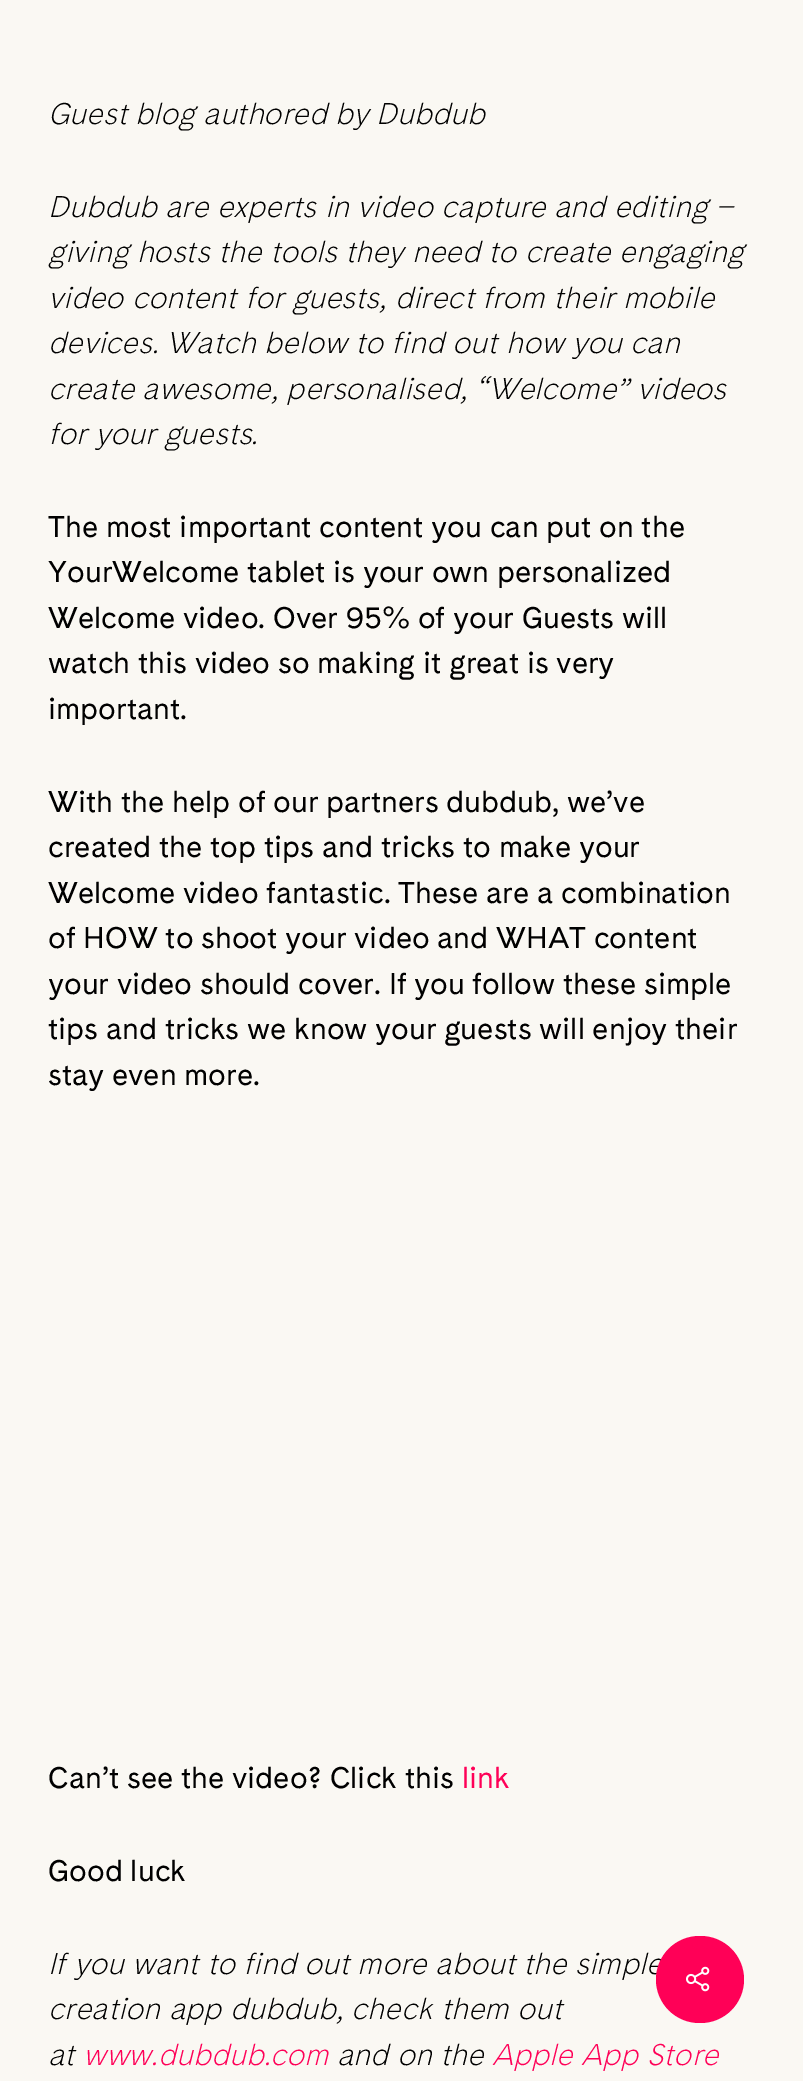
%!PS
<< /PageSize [803 2081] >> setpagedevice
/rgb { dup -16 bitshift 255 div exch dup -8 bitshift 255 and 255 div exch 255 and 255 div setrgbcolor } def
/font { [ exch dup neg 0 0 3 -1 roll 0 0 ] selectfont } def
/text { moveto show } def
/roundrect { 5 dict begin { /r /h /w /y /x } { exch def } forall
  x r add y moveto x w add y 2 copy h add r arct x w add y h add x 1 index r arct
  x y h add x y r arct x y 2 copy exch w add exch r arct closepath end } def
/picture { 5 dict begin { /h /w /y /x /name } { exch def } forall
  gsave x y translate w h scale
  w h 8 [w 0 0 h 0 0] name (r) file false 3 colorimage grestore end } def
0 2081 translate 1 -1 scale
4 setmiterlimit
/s1 { /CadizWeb-LightItalic 29.75 font 16#000000 rgb } def
/s2 { /CadizWeb-Regular 29.75 font 16#000000 rgb } def
/s3 { /CadizWeb-Regular 29.75 font 16#FF0057 rgb } def
/s4 { /CadizWeb-LightItalic 29.75 font 16#FF0057 rgb } def
16#FAF8F3 rgb
0 0 803 2081 rectfill
s1
(Guest blog authored by Dubdub) 48 124 text
(Dubdub are experts in video capture and editing –) 48 217 text
(giving hosts the tools they need to create engaging) 48 262 text
(video content for guests, direct from their mobile) 48 308 text
(devices. Watch below to find out how you can) 48 353 text
(create awesome, personalised, “Welcome” videos) 48 399 text
(for your guests.) 48 444 text
s2
(The most important content you can put on the) 48 537 text
(YourWelcome tablet is your own personalized) 48 582 text
(Welcome video. Over 95% of your Guests will) 48 628 text
(watch this video so making it great is very) 48 673 text
(important.) 48 719 text
(With the help of our partners dubdub, we’ve) 48 812 text
(created the top tips and tricks to make your) 48 857 text
(Welcome video fantastic. These are a combination) 48 903 text
(of HOW to shoot your video and WHAT content) 48 948 text
(your video should cover. If you follow these simple) 48 994 text
(tips and tricks we know your guests will enjoy their) 48 1039 text
(stay even more.) 48 1085 text
(Can’t see the video? Click this) 48 1788 text
s3
(link) 462 1788 text
s2
(Good luck) 48 1881 text
s1
(If you want to find out more about the simple) 48 1974 text
(creation app dubdub, check them out) 48 2019 text
(at) 48 2065 text
s4
(www.dubdub.com) 83 2065 text
s1
(and on the) 337 2065 text
s4
(Apple App Store) 492 2065 text
656 1936 88 87 43.5 roundrect fill
(pic1.raw) 686 1966 24 26 picture
showpage
